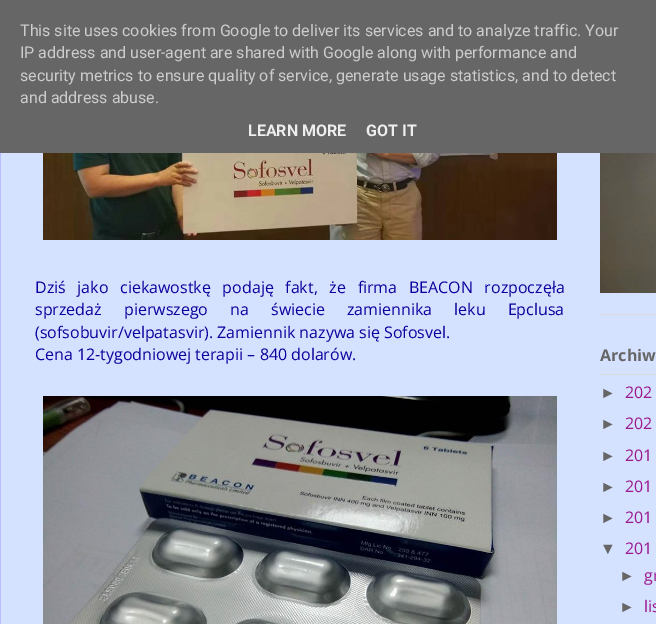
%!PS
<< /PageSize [656 624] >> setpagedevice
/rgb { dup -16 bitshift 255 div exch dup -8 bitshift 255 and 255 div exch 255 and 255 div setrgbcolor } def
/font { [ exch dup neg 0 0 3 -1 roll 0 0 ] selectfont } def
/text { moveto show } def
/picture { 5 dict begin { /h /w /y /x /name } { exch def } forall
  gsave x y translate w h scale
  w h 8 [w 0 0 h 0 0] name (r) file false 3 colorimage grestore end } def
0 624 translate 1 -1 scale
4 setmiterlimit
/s1 { /Roboto-Regular 16 font 16#CCCCCC rgb } def
/s2 { /Roboto-Bold 16 font 16#EEEEEE rgb } def
/s3 { /OpenSans-Regular 16 font 16#0D009C rgb } def
/s4 { /OpenSans-Bold 16 font 16#666666 rgb } def
/s5 { /LiberationSans-Regular 16 font 16#666666 rgb } def
/s6 { /OpenSans-Regular 16 font 16#9C1990 rgb } def
16#D4E1FF rgb
0 0 656 624 rectfill
16#666666 rgb
0 0 656 153 rectfill
s1
(This site uses cookies from Google to deliver its services and to analyze traffic. Your) 20 36 text
(IP address and user-agent are shared with Google along with performance and) 20 58 text
(security metrics to ensure quality of service, generate usage statistics, and to detect) 20 81 text
(and address abuse.) 20 103 text
s2
(LEARN MORE) 248 136 text
(GOT IT) 366 136 text
16#BBBBFF rgb
0 153 1 471 rectfill
(pic1.raw) 43 153 514 87 picture
/OpenSans-Regular 16 font
16#0D009C rgb
35 293 moveto 7.5 0 32 (Dziś jako ciekawostkę podaję fakt, że firma BEACON rozpoczęła) widthshow
35 315 moveto 18 0 32 (sprzedaż pierwszego na świecie zamiennika leku Epclusa) widthshow
(\(sofsobuvir/velpatasvir\). Zamiennik nazywa się Sofosvel.) 35 338 text
(Cena 12-tygodniowej terapii – 840 dolarów.) 35 360 text
(pic2.raw) 43 396 514 228 picture
16#DBDBDB rgb
600 314 56 1 rectfill
(pic3.raw) 600 153 56 140 picture
600 374 56 1 rectfill
s4
(Archiw) 600 361 text
s5
(►) 600 398 text
s6
(202) 625 398 text
s5
(►) 600 429 text
s6
(202) 625 429 text
s5
(►) 600 461 text
s6
(201) 625 461 text
s5
(►) 600 492 text
s6
(201) 625 492 text
s5
(►) 600 523 text
s6
(201) 625 523 text
s5
(▼) 600 554 text
s6
(201) 625 554 text
s5
(►) 619 581 text
s6
(gr) 644 581 text
s5
(►) 619 612 text
s6
(lis) 644 612 text
showpage
